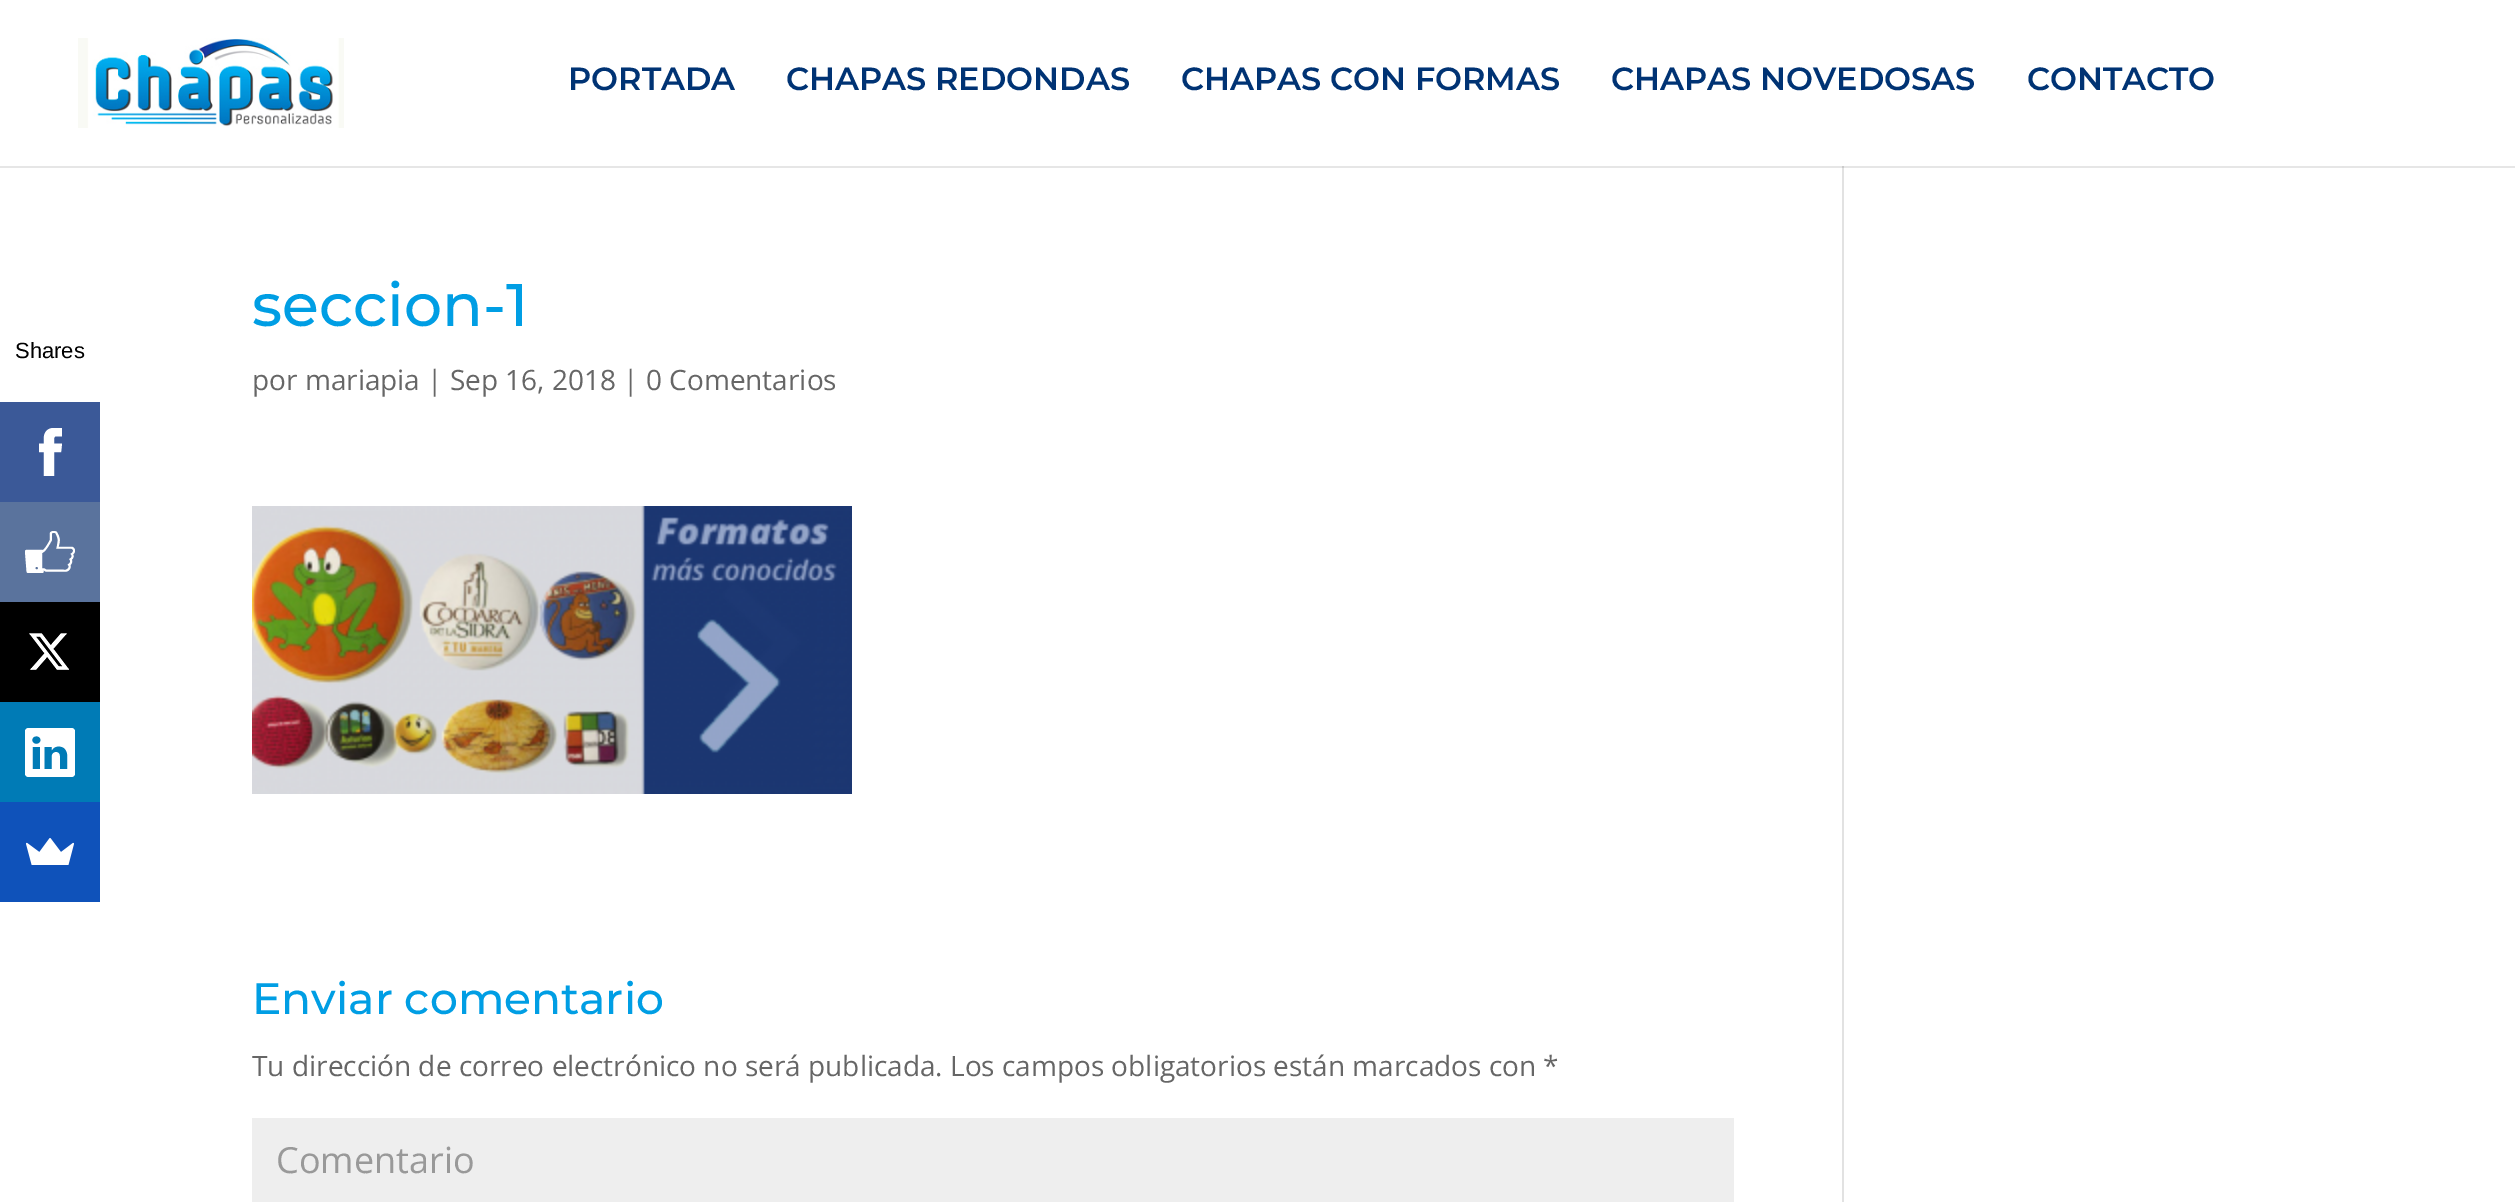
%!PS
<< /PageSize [2515 1202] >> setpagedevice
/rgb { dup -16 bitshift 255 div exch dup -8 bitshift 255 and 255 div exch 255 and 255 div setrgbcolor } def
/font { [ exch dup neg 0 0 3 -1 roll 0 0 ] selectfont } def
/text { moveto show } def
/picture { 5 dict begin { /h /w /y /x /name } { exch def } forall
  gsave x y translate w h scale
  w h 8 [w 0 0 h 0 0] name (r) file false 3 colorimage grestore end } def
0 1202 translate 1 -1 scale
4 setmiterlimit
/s1 { /LiberationSans-Regular 22 font 16#000000 rgb } def
/s2 { /Montserrat-SemiBold 32 font 16#003374 rgb } def
/s3 { /Montserrat-Medium 60 font 16#009EE4 rgb } def
/s4 { /OpenSans-Regular 28 font 16#666666 rgb } def
/s5 { /Montserrat-Medium 44 font 16#009EE4 rgb } def
/s6 { /OpenSans-Regular 36 font 16#999999 rgb } def
16#FFFFFF rgb
0 0 2515 1202 rectfill
16#E6E6E6 rgb
0 166 2515 2 rectfill
s1
(Shares) 15 358 text
16#3B5998 rgb
0 402 100 100 rectfill
(pic1.raw) 39 428 23 48 picture
16#5A739D rgb
0 502 100 100 rectfill
(pic2.raw) 25 531 50 42 picture
16#000000 rgb
0 602 100 100 rectfill
(pic3.raw) 29 633 40 37 picture
16#007BB6 rgb
0 702 100 100 rectfill
(pic4.raw) 25 728 50 49 picture
16#0F52BA rgb
0 802 100 100 rectfill
(pic5.raw) 26 838 48 27 picture
16#E2E2E2 rgb
1842 160 2 1042 rectfill
16#FFFFFF rgb
1842 160 2 6 rectfill
(pic6.raw) 78 38 266 90 picture
s2
(PORTADA) 568 90 text
(CHAPAS REDONDAS) 786 90 text
(CHAPAS CON FORMAS) 1181 90 text
(CHAPAS NOVEDOSAS) 1611 90 text
(CONTACTO) 2027 90 text
s3
(seccion-1) 252 326 text
s4
(por mariapia | Sep 16, 2018 | 0 Comentarios) 252 390 text
(pic7.raw) 252 506 600 288 picture
s5
(Enviar comentario) 252 1014 text
s4
(Tu dirección de correo electrónico no será publicada. Los campos obligatorios están marcados con *) 252 1076 text
16#EEEEEE rgb
252 1118 1482 84 rectfill
s6
(Comentario) 276 1173 text
16#CBCBCB rgb
1842 166 2 2 rectfill
showpage
